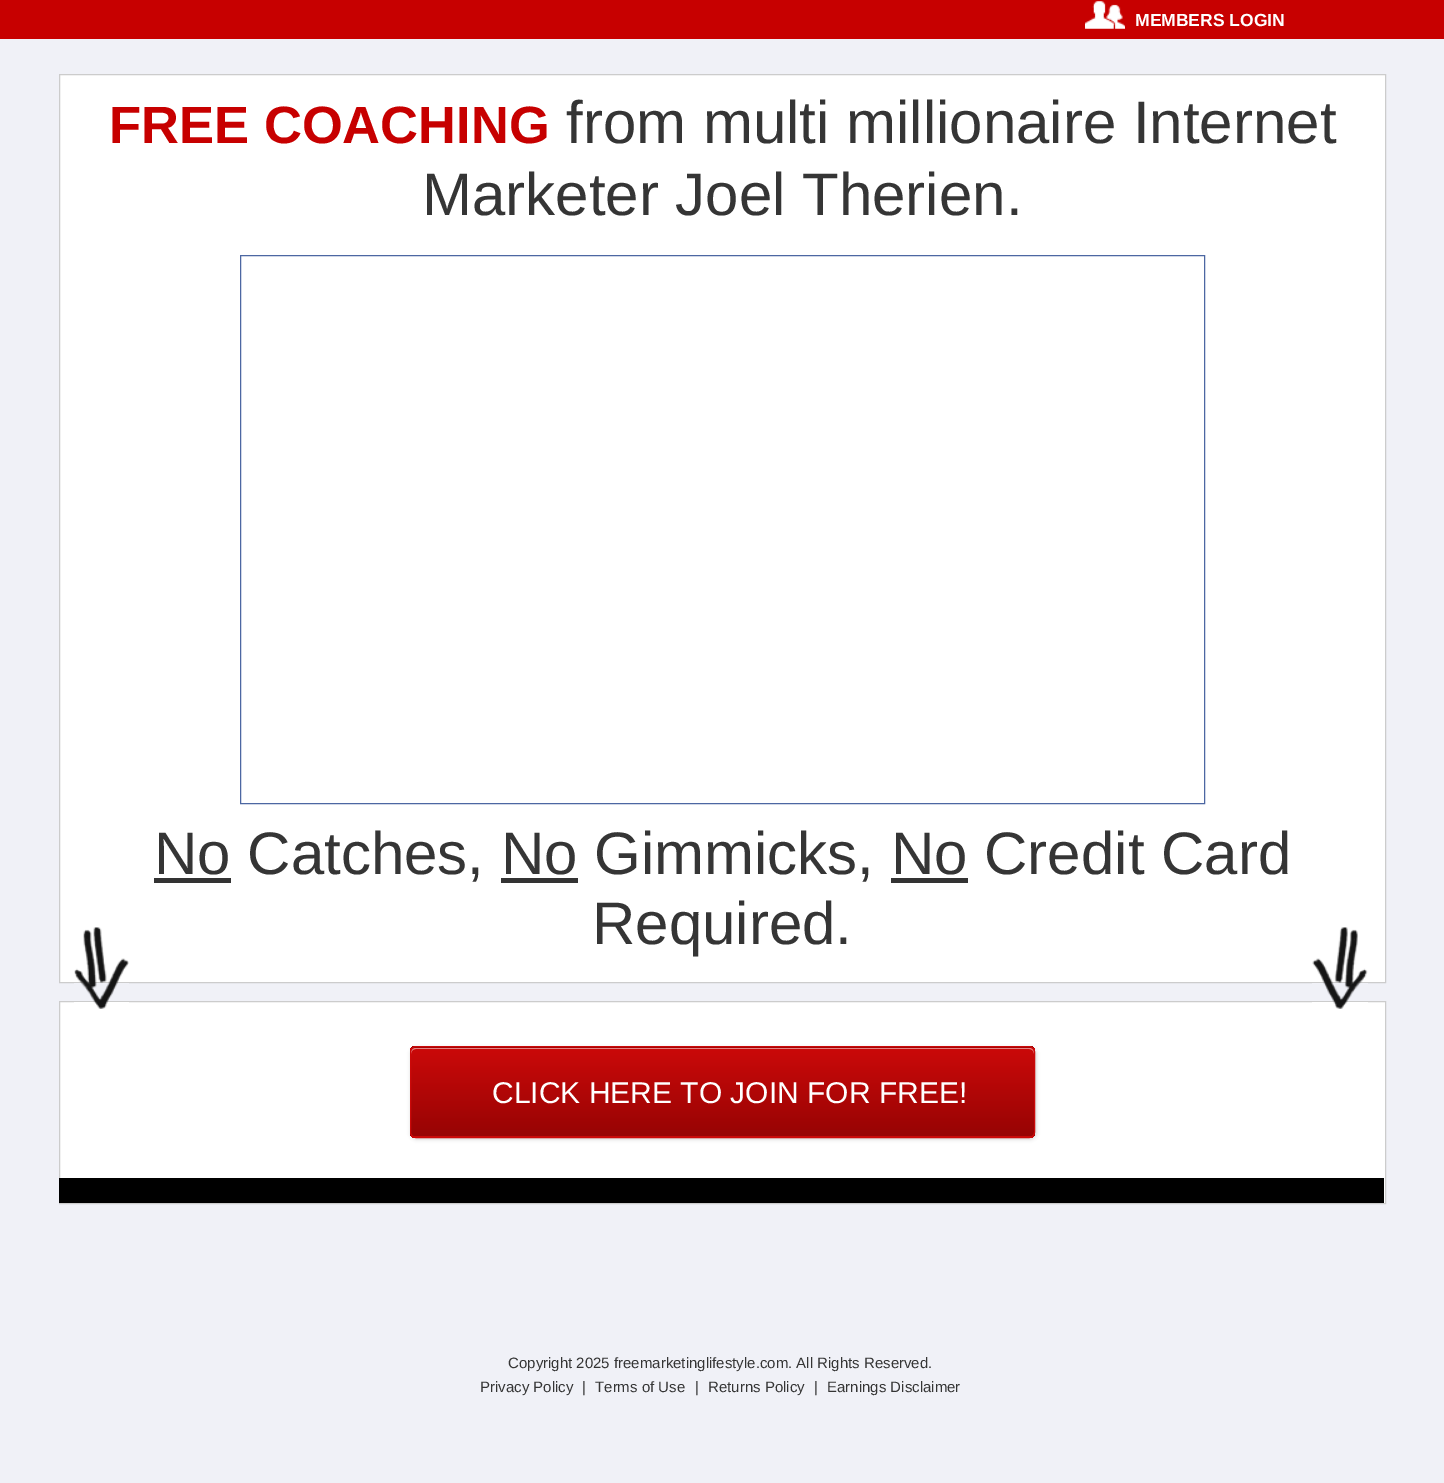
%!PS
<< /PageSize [1444 1483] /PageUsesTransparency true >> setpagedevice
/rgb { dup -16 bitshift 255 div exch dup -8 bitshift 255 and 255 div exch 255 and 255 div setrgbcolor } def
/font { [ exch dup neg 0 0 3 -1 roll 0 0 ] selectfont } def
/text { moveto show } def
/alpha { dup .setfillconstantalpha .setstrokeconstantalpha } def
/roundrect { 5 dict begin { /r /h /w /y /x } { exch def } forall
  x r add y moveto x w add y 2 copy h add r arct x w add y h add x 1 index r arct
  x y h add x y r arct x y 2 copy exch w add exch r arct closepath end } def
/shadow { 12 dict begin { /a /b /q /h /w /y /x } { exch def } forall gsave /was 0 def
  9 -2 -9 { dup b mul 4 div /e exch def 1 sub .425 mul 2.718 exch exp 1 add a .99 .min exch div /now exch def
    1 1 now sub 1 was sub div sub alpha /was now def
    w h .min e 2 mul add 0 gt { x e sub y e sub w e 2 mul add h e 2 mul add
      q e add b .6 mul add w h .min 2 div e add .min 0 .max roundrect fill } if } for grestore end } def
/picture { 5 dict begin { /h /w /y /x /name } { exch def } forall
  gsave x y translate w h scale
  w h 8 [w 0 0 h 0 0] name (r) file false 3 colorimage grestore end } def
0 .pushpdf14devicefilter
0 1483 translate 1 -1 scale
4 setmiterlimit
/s1 { /Arimo-Bold 17.5 font 16#FFFFFF rgb } def
/s2 { /Arimo-Bold 52.5 font 16#C70000 rgb } def
/s3 { /Arimo-Regular 60 font 16#353535 rgb } def
/s4 { /Arimo-Regular 30 font 16#FFFFFF rgb } def
/s5 { /Arimo-Regular 15 font 16#353535 rgb } def
16#F0F1F7 rgb
0 0 1444 1483 rectfill
16#C70000 rgb
0 0 1444 39 rectfill
(pic1.raw) 1085 1 40 28 picture
s1
(MEMBERS LOGIN) 1135 26 text
59.5 74.5 moveto 1385.5 74.5 lineto 1385.5 982.5 lineto 59.5 982.5 lineto closepath gsave fill grestore
16#CCCCCC rgb
stroke
s2
(FREE COACHING) 109 143 text
s3
(from multi millionaire Internet) 566 143 text
(Marketer Joel Therien.) 422 215 text
16#4C67A2 rgb
240.5 255.5 964 548 rectstroke
16#333333 rgb
154 878 77 5 rectfill
s3
(No Catches, No Gimmicks, No Credit Card) 154 874 text
16#333333 rgb
501 878 77 5 rectfill
891 878 77 5 rectfill
s3
(Required.) 592 944 text
16#FFFFFF rgb
59.5 1001.5 moveto 1385.5 1001.5 lineto 1385.5 1203.5 lineto 59.5 1203.5 lineto closepath gsave fill grestore
16#CCCCCC rgb
stroke
(pic2.raw) 74 927 55 82 picture
(pic3.raw) 1312 927 56 82 picture
16#000000 rgb
411 1048 625 91 6 2 0.2 shadow
gsave
410 1046 625 92 6 roundrect clip newpath
gsave 410 1046 moveto 1035 1046 lineto 1035 1048 lineto 410 1048 lineto closepath clip newpath
<< /ShadingType 2 /ColorSpace /DeviceRGB /Coords [723 959 723 1048] /Extend [true true] /Function << /FunctionType 2 /Domain [0 1] /C0 [0.796 0.035 0.035] /C1 [0.592 0.016 0.016] /N 1 >> >> shfill grestore
gsave 410 1048 moveto 1035 1048 lineto 1035 1136 lineto 410 1136 lineto closepath clip newpath
<< /ShadingType 2 /ColorSpace /DeviceRGB /Coords [723 1048 723 1136] /Extend [true true] /Function << /FunctionType 2 /Domain [0 1] /C0 [0.796 0.035 0.035] /C1 [0.592 0.016 0.016] /N 1 >> >> shfill grestore
gsave 410 1136 moveto 1035 1136 lineto 1035 1138 lineto 410 1138 lineto closepath clip newpath
<< /ShadingType 2 /ColorSpace /DeviceRGB /Coords [723 1136 723 1225] /Extend [true true] /Function << /FunctionType 2 /Domain [0 1] /C0 [0.796 0.035 0.035] /C1 [0.592 0.016 0.016] /N 1 >> >> shfill grestore
grestore
16#E58484 rgb
416 1049 moveto 1029 1049 lineto 1032 1049 1034 1051 1034 1054 curveto 1034 1053 lineto 1034 1050 1032 1048 1029 1048 curveto 416 1048 lineto 413 1048 411 1050 411 1053 curveto 411 1054 lineto 411 1051 413 1049 416 1049 curveto closepath fill
16#CB0909 rgb
410.5 1046.5 624 91 5.5 roundrect stroke
s4
(CLICK HERE TO JOIN FOR FREE!) 492 1103 text
16#000000 rgb
59 1178 1325 25 rectfill
s5
(Copyright 2025 freemarketinglifestyle.com. All Rights Reserved.) 508 1368 text
(Privacy Policy) 480 1392 text
(|) 582 1392 text
(Terms of Use) 595 1392 text
(|) 695 1392 text
(Returns Policy) 708 1392 text
(|) 814 1392 text
(Earnings Disclaimer) 827 1392 text
.poppdf14devicefilter showpage
